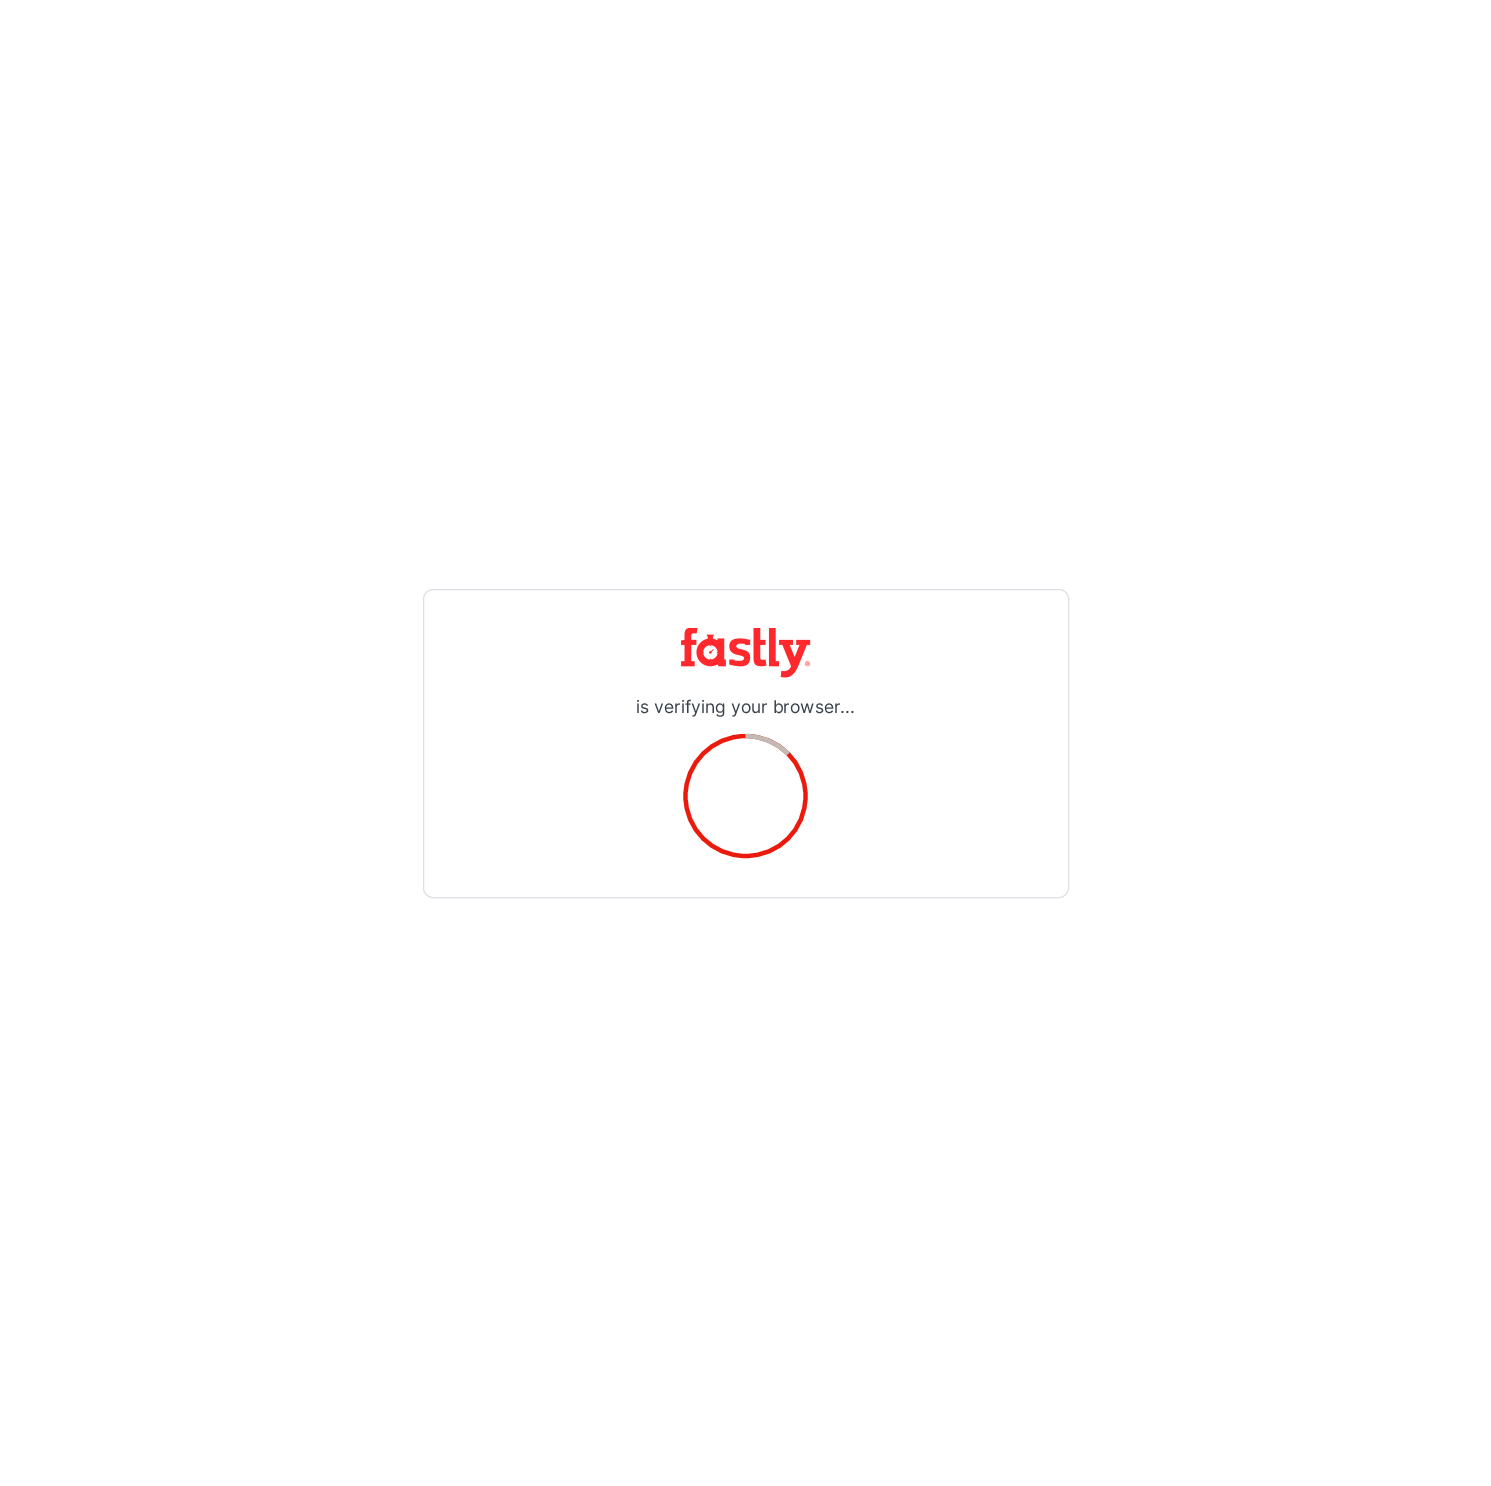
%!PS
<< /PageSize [1491 1486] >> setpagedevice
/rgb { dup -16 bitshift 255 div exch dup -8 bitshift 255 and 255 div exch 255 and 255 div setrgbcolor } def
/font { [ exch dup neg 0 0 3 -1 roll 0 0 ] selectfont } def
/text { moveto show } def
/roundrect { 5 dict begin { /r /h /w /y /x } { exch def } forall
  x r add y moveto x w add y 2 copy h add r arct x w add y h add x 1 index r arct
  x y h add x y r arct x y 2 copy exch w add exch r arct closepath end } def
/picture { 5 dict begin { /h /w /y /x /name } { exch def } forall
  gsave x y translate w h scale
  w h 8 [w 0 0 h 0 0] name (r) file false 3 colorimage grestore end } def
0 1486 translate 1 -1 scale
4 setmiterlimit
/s1 { /Inter-Regular 17.5 font 16#3A424A rgb } def
16#FFFFFF rgb
0 0 1491 1486 rectfill
16#DCE0E4 rgb
423.5 589.5 645 308 9.5 roundrect stroke
(pic1.raw) 681 628 130 50 picture
s1
(is verifying your browser...) 636 713 text
gsave
461 734 569 125 rectclip
16#EB1A0C rgb
4.2 setlinewidth
685.5 796 moveto 685.5 763 712.5 736 745.5 736 curveto 779 736 805.5 763 805.5 796 curveto 805.5 829.5 779 856 745.5 856 curveto 712.5 856 685.5 829.5 685.5 796 curveto closepath stroke
grestore
16#C2BAB5 rgb
4.2 setlinewidth
788 754 moveto 777 742.5 761.5 736 745.5 736 curveto stroke
showpage
